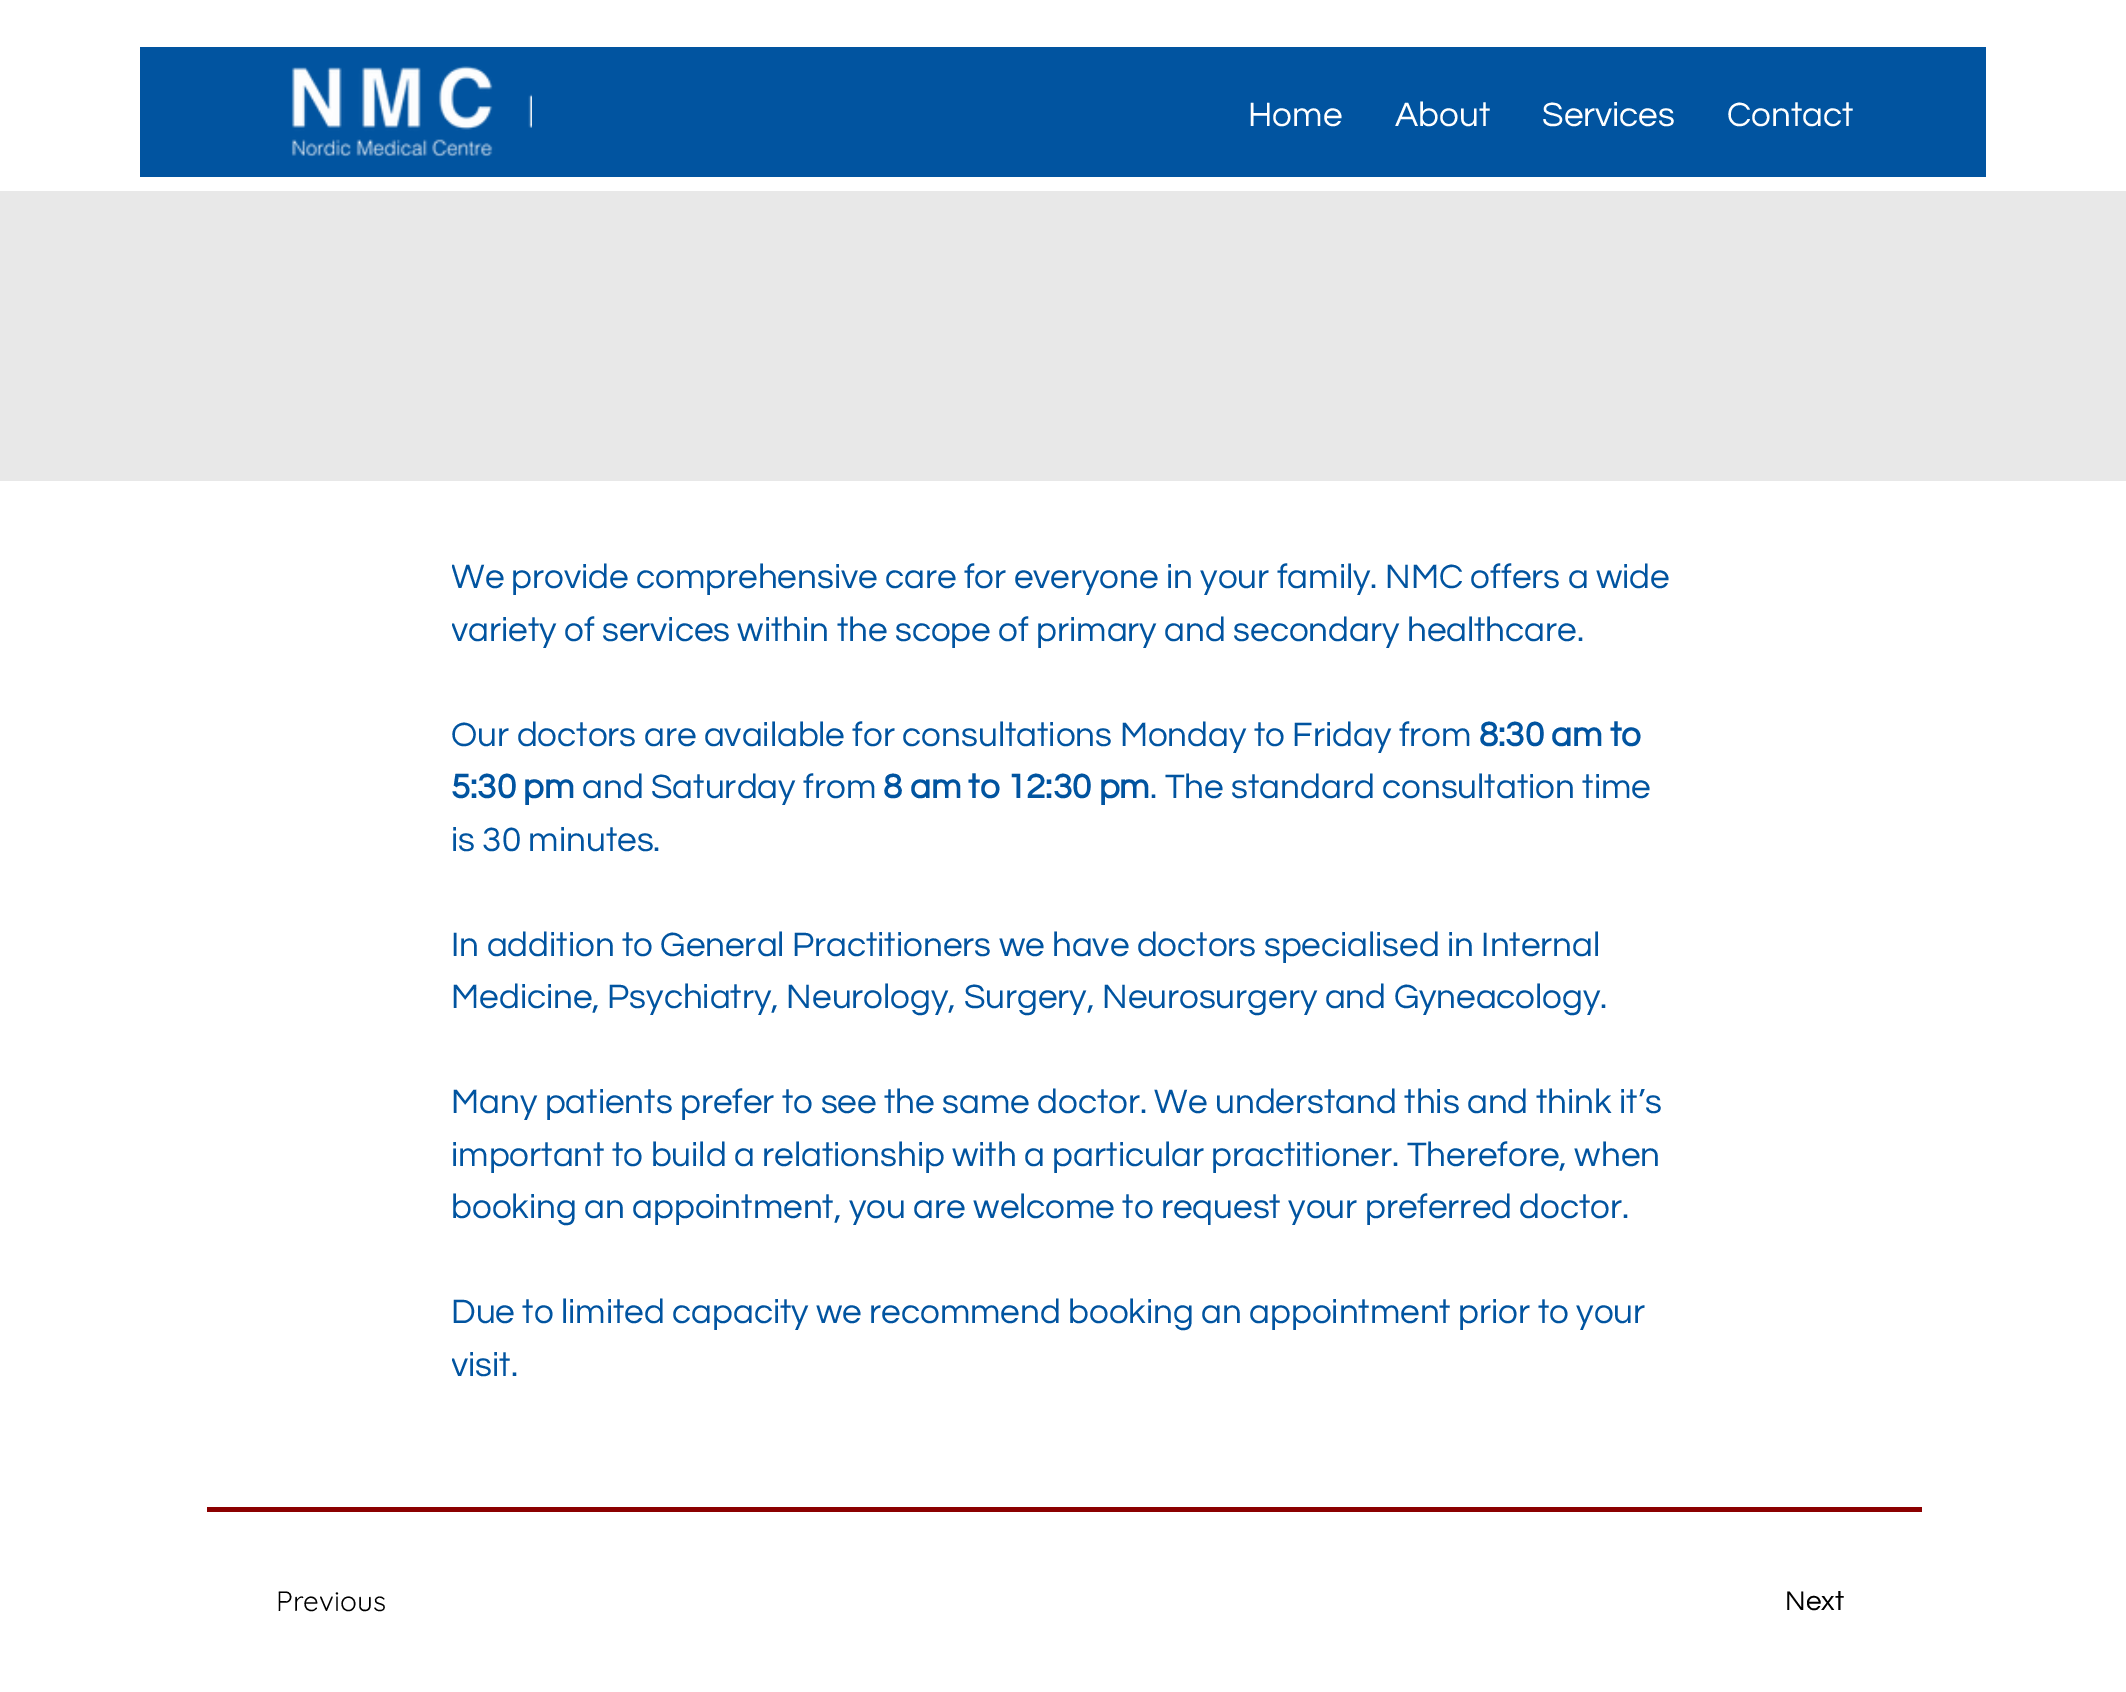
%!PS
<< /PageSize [2126 1692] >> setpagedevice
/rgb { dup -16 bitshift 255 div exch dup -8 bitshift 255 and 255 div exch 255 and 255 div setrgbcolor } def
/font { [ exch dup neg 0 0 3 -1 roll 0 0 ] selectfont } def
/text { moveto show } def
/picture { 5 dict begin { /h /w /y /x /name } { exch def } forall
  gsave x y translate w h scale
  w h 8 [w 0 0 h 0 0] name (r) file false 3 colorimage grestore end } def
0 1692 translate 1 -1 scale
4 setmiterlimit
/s1 { /Questrial-Regular 35 font 16#FFFFFF rgb } def
/s2 { /Questrial-Regular 35 font 16#0154A0 rgb } def
/s3 { /Questrial-Bold 35 font 16#0154A0 rgb } def
/s4 { /Quicksand-Regular 28 font 16#000000 rgb } def
/s5 { /Questrial-Regular 28 font 16#000000 rgb } def
16#FFFFFF rgb
0 0 2126 1692 rectfill
16#0154A0 rgb
140 47 1846 130 rectfill
(pic1.raw) 291 66 241 91 picture
s1
(Home) 1248 126 text
(About) 1395 126 text
(Services) 1542 126 text
(Contact) 1727 126 text
16#E8E8E8 rgb
0 191 2126 290 rectfill
gsave
452 551 1225 840 rectclip
s2
(We provide comprehensive care for everyone in your family. NMC offers a wide) 451 588 text
(variety of services within the scope of primary and secondary healthcare.) 451 641 text
grestore
s2
(Our doctors are available for consultations Monday to Friday from) 451 746 text
s3
(8:30 am to) 1479 746 text
(5:30 pm) 451 798 text
s2
(and Saturday from) 582 798 text
s3
(8 am to 12:30 pm) 883 798 text
s2
(. The standard consultation time) 1150 798 text
(is 30 minutes.) 451 851 text
(In addition to General Practitioners we have doctors specialised in Internal) 451 956 text
(Medicine, Psychiatry, Neurology, Surgery, Neurosurgery and Gyneacology.) 451 1008 text
(Many patients prefer to see the same doctor. We understand this and think it’s) 451 1113 text
(important to build a relationship with a particular practitioner. Therefore, when) 451 1166 text
(booking an appointment, you are welcome to request your preferred doctor.) 451 1218 text
(Due to limited capacity we recommend booking an appointment prior to your) 451 1323 text
gsave
452 551 1225 840 rectclip
(visit.) 451 1376 text
grestore
16#8B0000 rgb
207 1507 1715 5 rectfill
s4
(Previous) 276 1611 text
s5
(Next) 1785 1610 text
showpage
